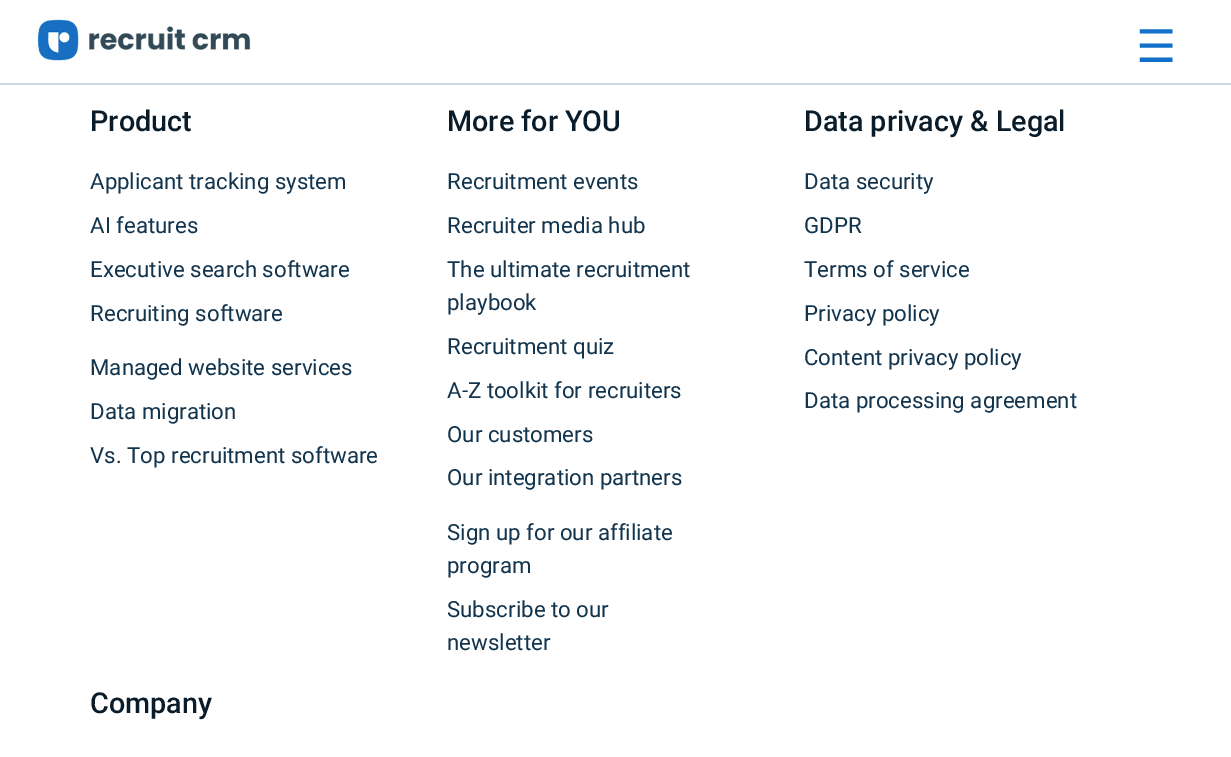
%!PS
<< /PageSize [1231 757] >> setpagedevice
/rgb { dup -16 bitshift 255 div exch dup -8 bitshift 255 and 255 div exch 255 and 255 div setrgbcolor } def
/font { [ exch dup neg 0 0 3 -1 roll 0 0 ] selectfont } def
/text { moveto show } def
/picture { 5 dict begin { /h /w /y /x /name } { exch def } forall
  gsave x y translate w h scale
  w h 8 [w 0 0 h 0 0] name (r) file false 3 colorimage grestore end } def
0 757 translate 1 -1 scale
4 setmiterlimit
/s1 { /DejaVuSans-Regular 45 font 16#1070CA rgb } def
/s2 { /Roboto-Medium 28.75 font 16#0A1C29 rgb } def
/s3 { /Roboto-Regular 22.25 font 16#12344D rgb } def
16#FFFFFF rgb
0 0 1231 757 rectfill
16#CFD9E6 rgb
0 83 1231 2 rectfill
(pic1.raw) 37 19 214 42 picture
s1
(☰) 1136 62 text
s2
(Product) 90 131 text
s3
(Applicant tracking system) 90 189 text
(AI features) 90 233 text
(Executive search software) 90 277 text
(Recruiting software) 90 321 text
(Managed website services) 90 375 text
(Data migration) 90 419 text
(Vs. Top recruitment software) 90 463 text
s2
(More for YOU) 447 131 text
s3
(Recruitment events) 447 189 text
(Recruiter media hub) 447 233 text
(The ultimate recruitment) 447 277 text
(playbook) 447 310 text
(Recruitment quiz) 447 354 text
(A-Z toolkit for recruiters) 447 398 text
(Our customers) 447 442 text
(Our integration partners) 447 485 text
(Sign up for our affiliate) 447 540 text
(program) 447 573 text
(Subscribe to our) 447 617 text
(newsletter) 447 650 text
s2
(Data privacy & Legal) 804 131 text
s3
(Data security) 804 189 text
(GDPR) 804 233 text
(Terms of service) 804 277 text
(Privacy policy) 804 321 text
(Content privacy policy) 804 365 text
(Data processing agreement) 804 408 text
s2
(Company) 90 713 text
showpage
